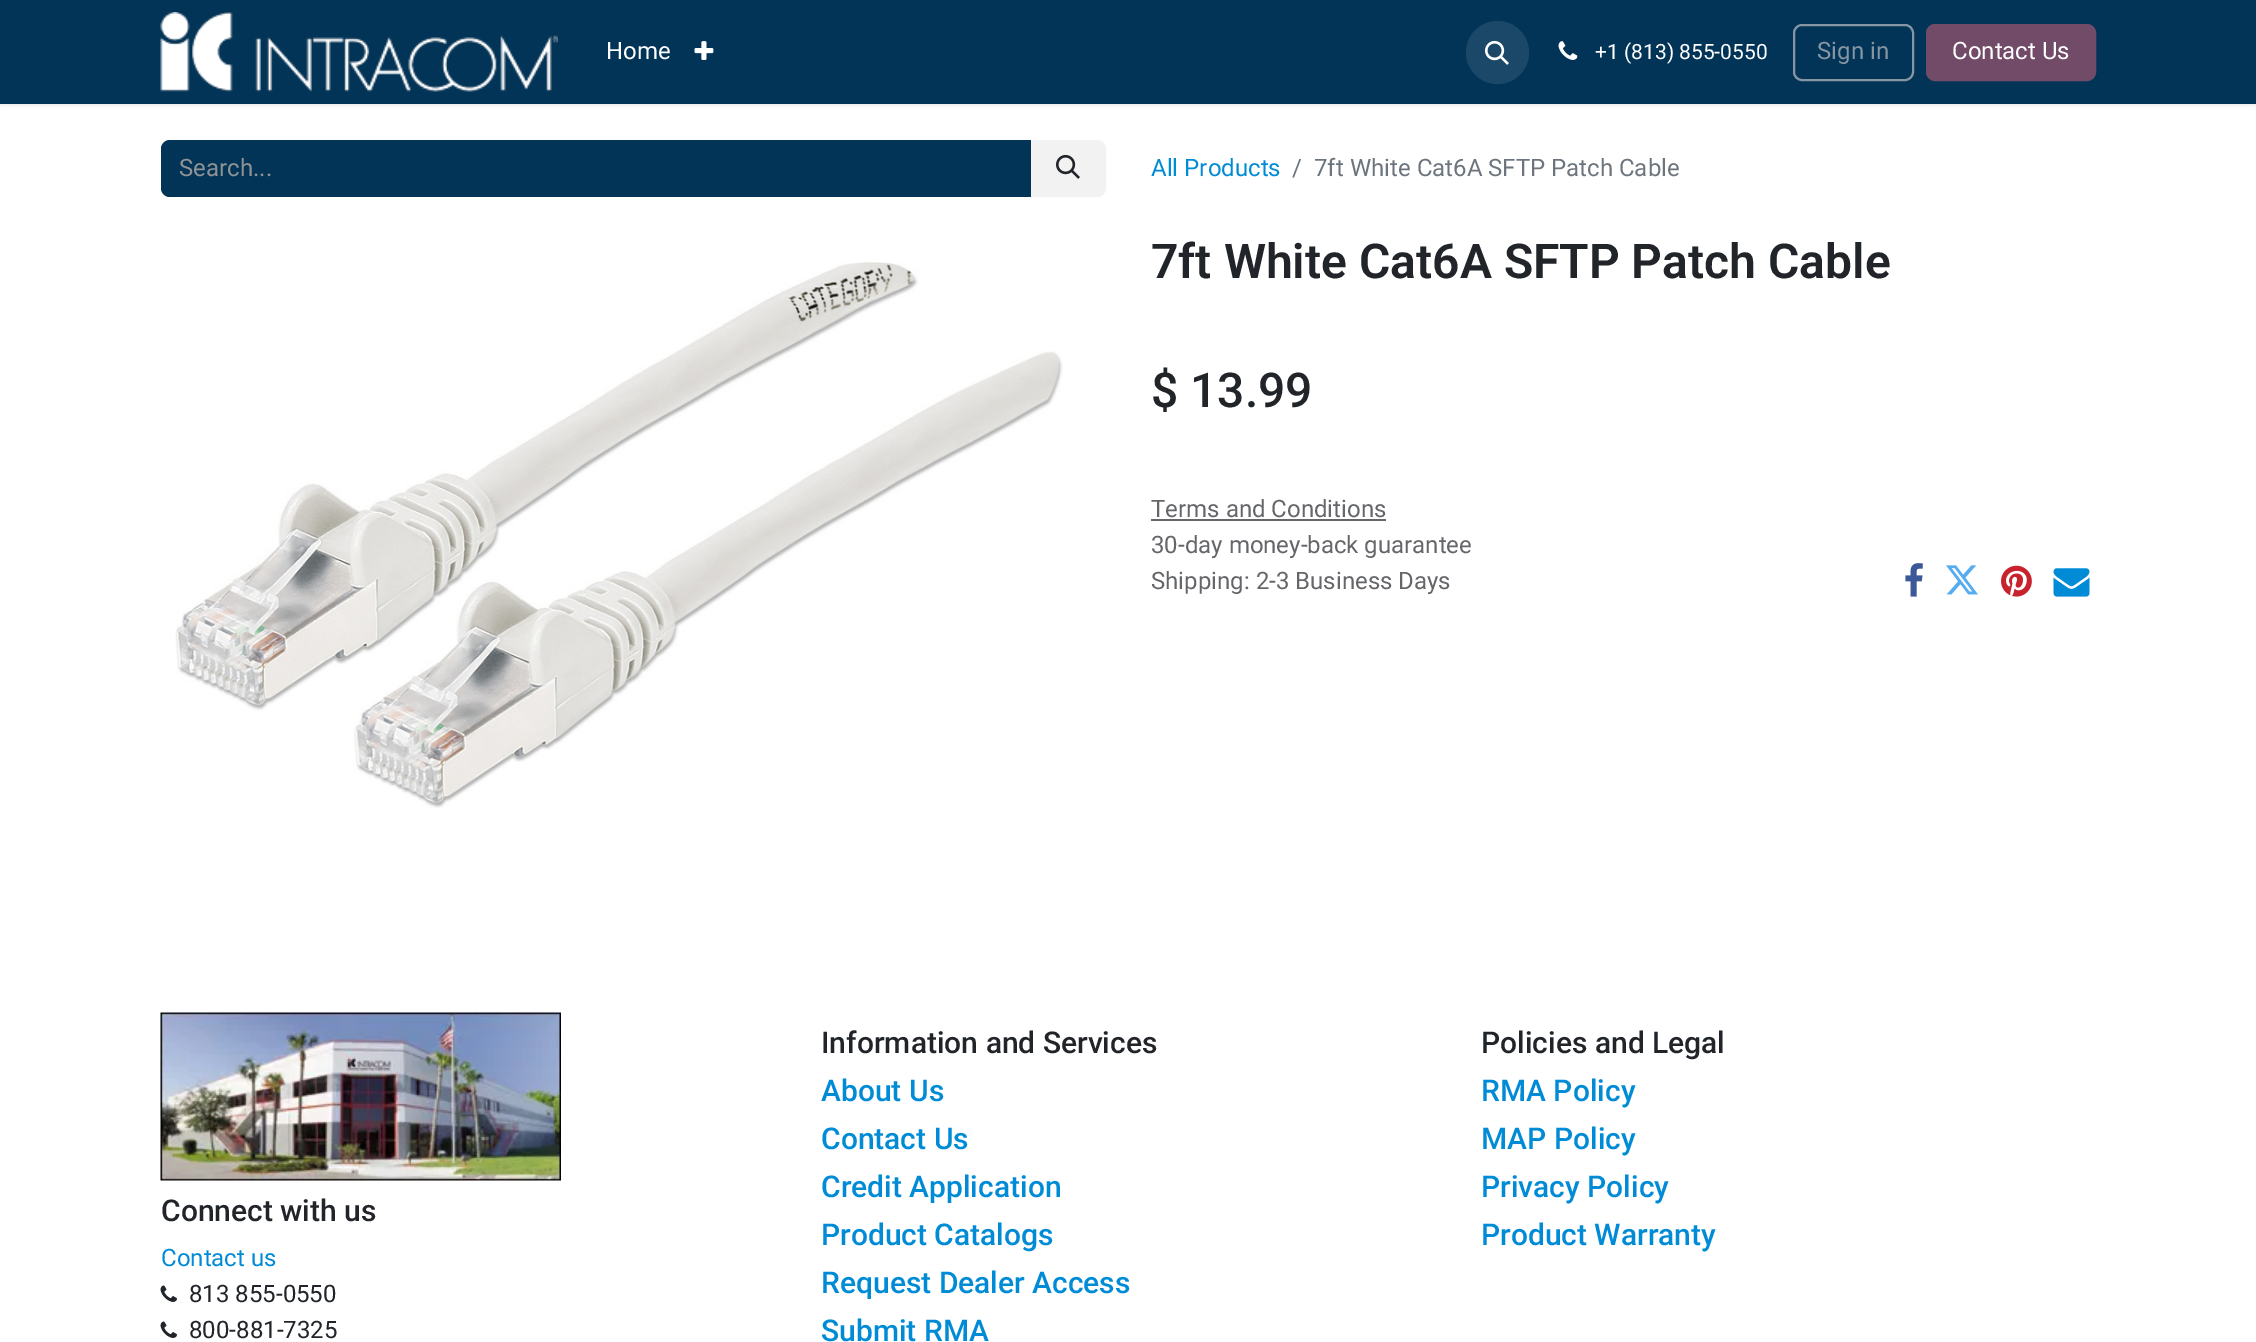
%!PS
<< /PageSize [2256 1342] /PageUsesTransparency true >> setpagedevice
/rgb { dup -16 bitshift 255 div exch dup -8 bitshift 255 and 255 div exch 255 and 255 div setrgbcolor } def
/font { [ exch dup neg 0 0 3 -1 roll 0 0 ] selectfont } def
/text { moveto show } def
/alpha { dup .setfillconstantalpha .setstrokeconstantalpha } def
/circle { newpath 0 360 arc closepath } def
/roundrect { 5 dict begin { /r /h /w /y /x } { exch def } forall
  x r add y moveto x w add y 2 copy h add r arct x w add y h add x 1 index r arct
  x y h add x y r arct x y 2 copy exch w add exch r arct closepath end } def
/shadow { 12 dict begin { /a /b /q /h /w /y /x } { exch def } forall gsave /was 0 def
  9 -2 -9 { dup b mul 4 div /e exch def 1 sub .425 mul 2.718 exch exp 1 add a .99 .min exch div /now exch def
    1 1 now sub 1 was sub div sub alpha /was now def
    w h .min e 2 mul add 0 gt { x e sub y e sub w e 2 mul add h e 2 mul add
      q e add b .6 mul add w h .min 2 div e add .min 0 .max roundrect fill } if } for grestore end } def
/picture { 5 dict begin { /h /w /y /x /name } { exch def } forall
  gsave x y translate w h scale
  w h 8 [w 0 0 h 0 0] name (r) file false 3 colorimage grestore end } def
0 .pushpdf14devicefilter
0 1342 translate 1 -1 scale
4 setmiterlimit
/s1 { /Roboto-Regular 24 font 16#FFFFFF rgb } def
/s2 { /Roboto-Regular 21 font 16#FFFFFF rgb } def
/s3 { /Roboto-Regular 24 font 16#8595A2 rgb } def
/s4 { /Roboto-Regular 24 font 16#909294 rgb } def
/s5 { /Roboto-Regular 24 font 16#008BD6 rgb } def
/s6 { /Roboto-Regular 24 font 16#6C757D rgb } def
/s7 { /Roboto-SemiBold 48 font 16#212529 rgb } def
/s8 { /Roboto-Medium 48 font 16#212529 rgb } def
/s9 { /Roboto-Regular 24 font 16#646669 rgb } def
/s10 { /Roboto-Medium 30 font 16#212529 rgb } def
/s11 { /Roboto-Medium 30 font 16#008BD6 rgb } def
/s12 { /Roboto-Regular 24 font 16#212529 rgb } def
16#FFFFFF rgb
0 0 2256 1342 rectfill
16#000000 rgb
0 2 2256 103 0 2 0.1 shadow
16#023458 rgb
0 0 2256 104 rectfill
(pic1.raw) 160 12 398 80 picture
s1
(Home) 606 59 text
(pic2.raw) 694 41 20 19 picture
16#1B4869 rgb
1497.5 52.5 31.5 circle fill
(pic3.raw) 1485 40 24 25 picture
(pic4.raw) 1558 41 20 19 picture
s2
(+1 \(813\) 855-0550) 1595 59 text
16#8595A2 rgb
2 setlinewidth
1794 25 119 55 8 roundrect stroke
s3
(Sign in) 1817 59 text
16#714B67 rgb
1927 25 168 55 8 roundrect gsave fill grestore
stroke
s1
(Contact Us) 1952 59 text
16#023458 rgb
170 140 moveto 1032 140 lineto 1032 197 lineto 170 197 lineto 165 197 161 193 161 188 curveto 161 149 lineto 161 144 165 140 170 140 curveto closepath fill
s4
(Search...) 179 176 text
16#F3F2F2 rgb
1032 141 moveto 1097 141 lineto 1101.5 141 1105 144.5 1105 149 curveto 1105 188 lineto 1105 192.5 1101.5 196 1097 196 curveto 1032 196 lineto closepath gsave fill grestore
stroke
(pic5.raw) 1056 154 24 25 picture
s5
(All Products) 1151 176 text
s6
(/) 1292 176 text
(7ft White Cat6A SFTP Patch Cable) 1314 176 text
(pic6.raw) 175 262 888 546 picture
s7
(7ft White Cat6A SFTP Patch Cable) 1151 278 text
s8
($ 13.99) 1151 407 text
s9
(Terms and Conditions) 1151 517 text
1151 519 235 2 rectfill
(30-day money-back guarantee) 1151 553 text
(Shipping: 2-3 Business Days) 1151 589 text
(pic7.raw) 1905 563 18 34 picture
(pic8.raw) 1946 565 32 30 picture
(pic9.raw) 2001 565 31 32 picture
(pic10.raw) 2053 568 37 29 picture
s10
(Information and Services) 821 1053 text
s11
(About Us) 821 1101 text
(Contact Us) 821 1149 text
(Credit Application) 821 1197 text
(Product Catalogs) 821 1245 text
(Request Dealer Access) 821 1293 text
(Submit RMA) 821 1341 text
s10
(Policies and Legal) 1481 1053 text
s11
(RMA Policy) 1481 1101 text
(MAP Policy) 1481 1149 text
(Privacy Policy) 1481 1197 text
(Product Warranty) 1481 1245 text
(pic11.raw) 160 1012 401 169 picture
s10
(Connect with us) 161 1221 text
s5
(Contact us) 161 1266 text
(pic12.raw) 160 1285 17 17 picture
s12
(813 855-0550) 189 1302 text
(pic12.raw) 160 1321 17 17 picture
(800-881-7325) 189 1338 text
.poppdf14devicefilter showpage
